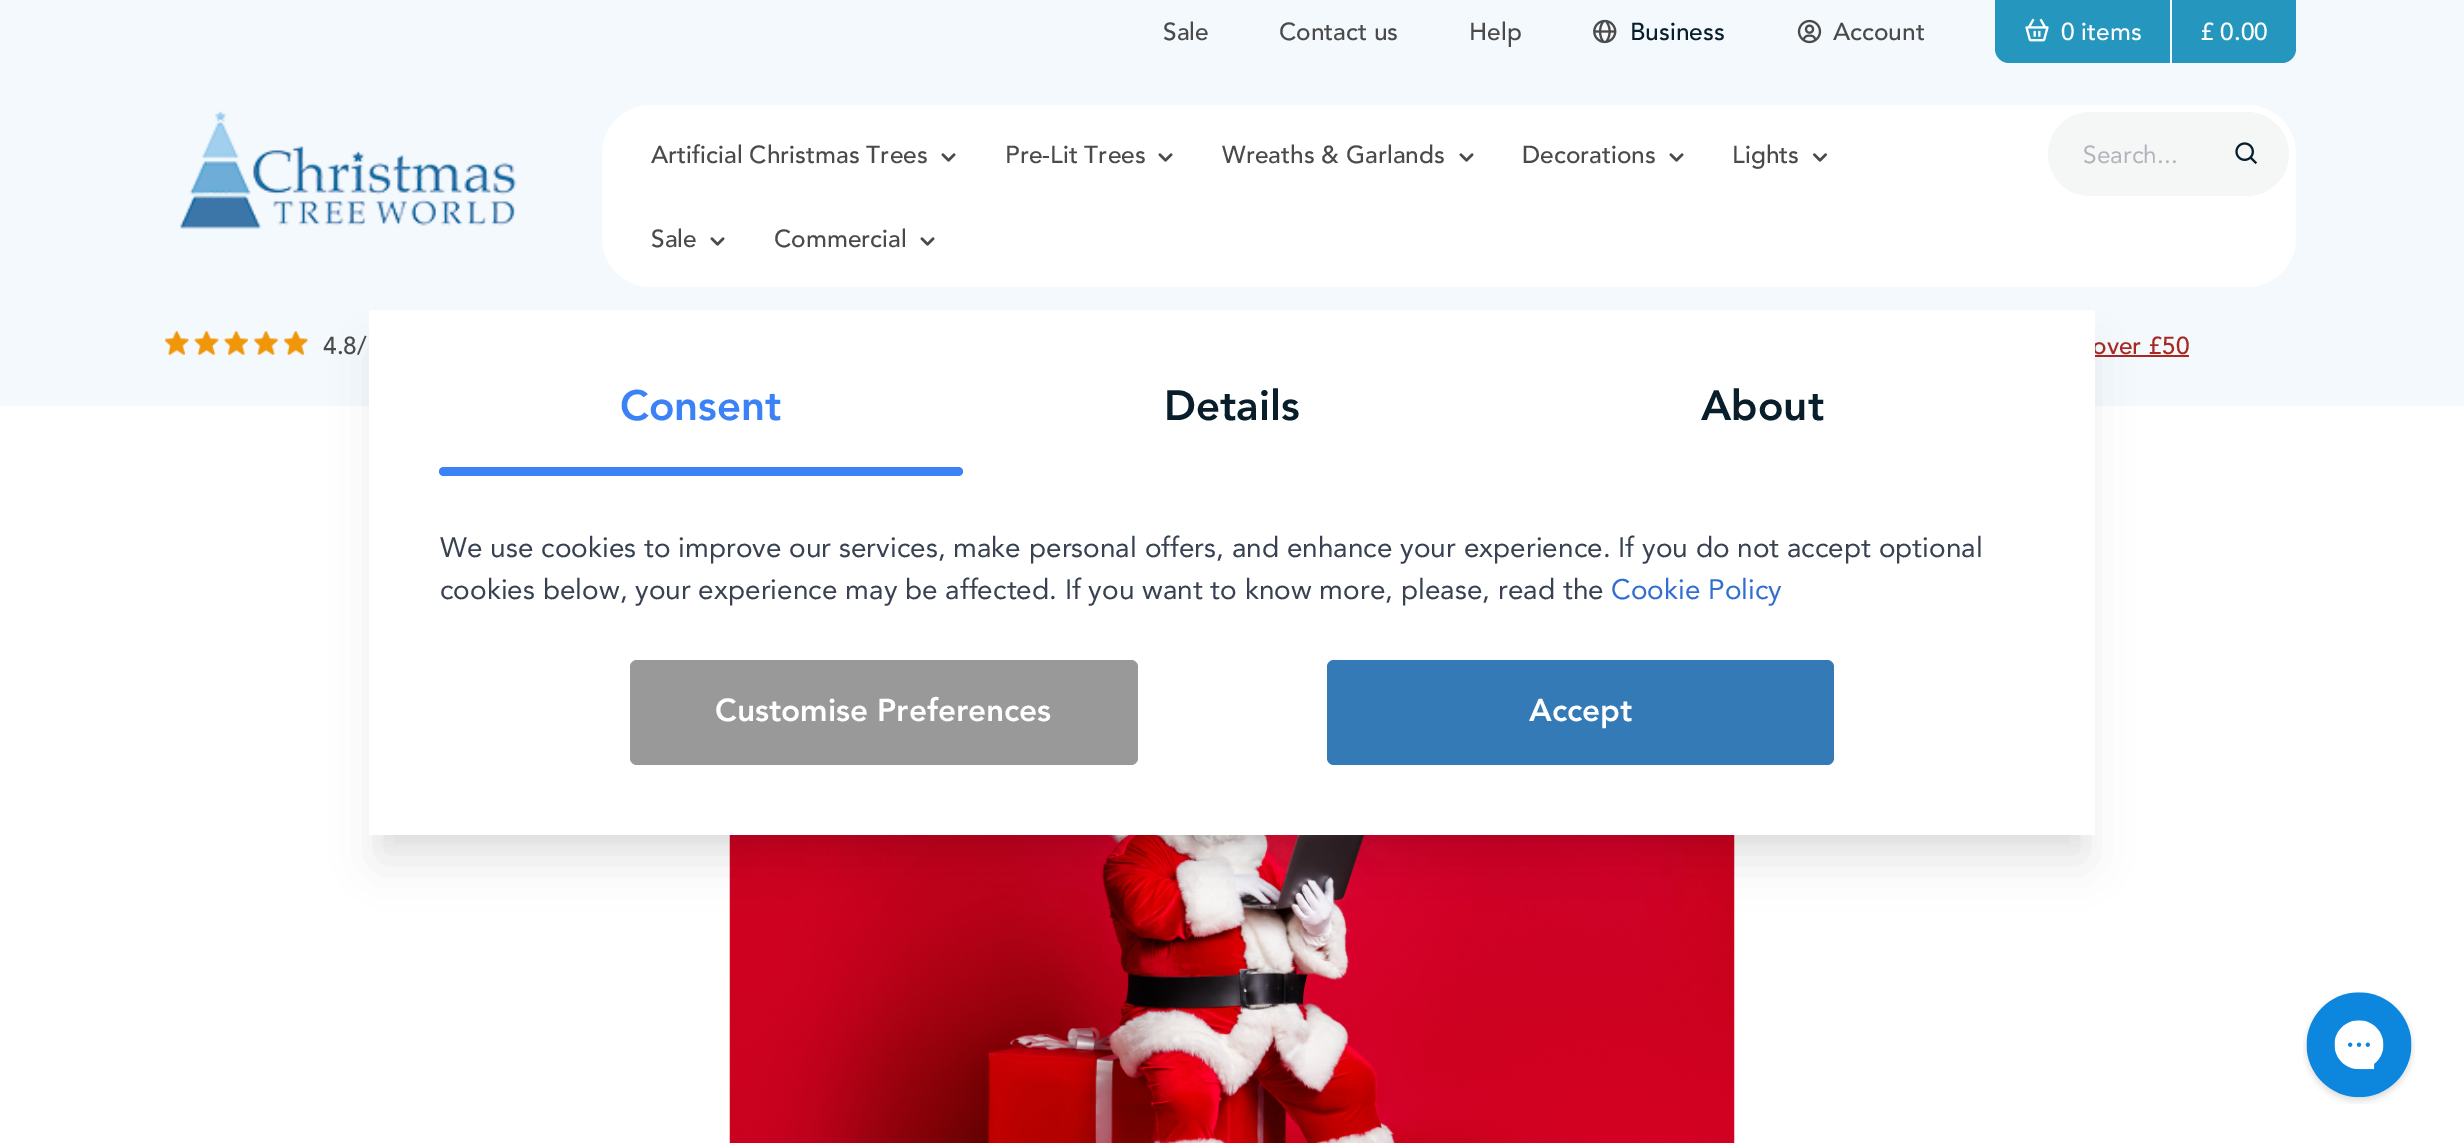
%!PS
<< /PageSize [2464 1143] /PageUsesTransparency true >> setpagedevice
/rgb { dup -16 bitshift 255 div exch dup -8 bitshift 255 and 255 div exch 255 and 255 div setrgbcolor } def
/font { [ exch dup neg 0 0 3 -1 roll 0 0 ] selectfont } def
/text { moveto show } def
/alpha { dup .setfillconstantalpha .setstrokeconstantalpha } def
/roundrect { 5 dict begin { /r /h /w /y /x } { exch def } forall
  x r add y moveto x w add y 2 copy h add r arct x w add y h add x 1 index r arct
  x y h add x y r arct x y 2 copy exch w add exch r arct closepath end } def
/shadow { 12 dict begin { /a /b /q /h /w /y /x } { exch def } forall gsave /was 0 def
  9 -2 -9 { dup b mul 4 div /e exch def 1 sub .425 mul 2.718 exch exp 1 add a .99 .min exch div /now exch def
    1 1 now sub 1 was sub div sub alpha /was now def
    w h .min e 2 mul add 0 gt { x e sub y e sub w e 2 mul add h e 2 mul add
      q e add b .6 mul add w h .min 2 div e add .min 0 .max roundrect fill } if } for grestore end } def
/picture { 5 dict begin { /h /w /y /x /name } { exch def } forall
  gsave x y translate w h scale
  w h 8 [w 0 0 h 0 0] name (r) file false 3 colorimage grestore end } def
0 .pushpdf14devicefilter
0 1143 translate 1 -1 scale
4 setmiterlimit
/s1 { /Avenir-Medium 24.5 font 16#4A4A4A rgb } def
/s2 { /Avenir-Medium 24.5 font 16#081E2B rgb } def
/s3 { /Avenir-Medium 24.5 font 16#FFFFFF rgb } def
/s4 { /Avenir-Regular 24.5 font 16#B0B5BB rgb } def
/s5 { /Avenir-Medium 24.5 font 16#A92921 rgb } def
/s6 { /Avenir-Black 42 font 16#3B82F6 rgb } def
/s7 { /Avenir-Black 42 font 16#081E2B rgb } def
/s8 { /Avenir-Regular 28 font 16#374151 rgb } def
/s9 { /Avenir-Regular 28 font 16#326ED1 rgb } def
/s10 { /Avenir-Black 31.5 font 16#FFFFFF rgb } def
16#FFFFFF rgb
0 0 2464 1143 rectfill
16#F3F9FC rgb
0 0 2464 406 rectfill
s1
(Sale) 1163 40 text
(Contact us) 1279 40 text
(Help) 1469 40 text
(pic1.raw) 1593 19 24 25 picture
s2
(Business) 1630 40 text
(pic2.raw) 1797 19 25 25 picture
s1
(Account) 1833 40 text
16#2596BE rgb
1995 0 moveto 2170 0 lineto 2170 63 lineto 2009 63 lineto 2001.5 63 1995 56.5 1995 49 curveto closepath fill
(pic3.raw) 2025 18 24 24 picture
s3
(0 items) 2061 40 text
16#2596BE rgb
2172 0 moveto 2296 0 lineto 2296 49 lineto 2296 56.5 2289.5 63 2282 63 curveto 2172 63 lineto closepath fill
s3
(£ 0.00) 2200 40 text
(pic4.raw) 180 111 337 118 picture
602 105 1694 182 49 roundrect fill
s1
(Artificial Christmas Trees) 651 163 text
(pic5.raw) 941 153 15 9 picture
(Pre-Lit Trees) 1005 163 text
(pic5.raw) 1158 153 15 9 picture
(Wreaths & Garlands) 1222 163 text
(pic5.raw) 1459 153 15 9 picture
(Decorations) 1522 163 text
(pic5.raw) 1669 153 15 9 picture
(Lights) 1732 163 text
(pic6.raw) 1813 153 14 9 picture
(Sale) 651 247 text
(pic5.raw) 710 237 15 9 picture
(Commercial) 774 247 text
(pic5.raw) 920 237 15 9 picture
16#F5F7F6 rgb
2048 112 241 84 42 roundrect fill
s4
(Search...) 2083 163 text
(pic7.raw) 2235 142 23 23 picture
(pic8.raw) 165 331 143 24 picture
s1
(4.8/) 323 354 text
s5
(over £50) 2092 354 text
2095 355 94 2 rectfill
(pic9.raw) 729 835 1006 308 picture
16#000000 rgb
378 336 1708 508 0 9 0.04 shadow
378 354 1708 507 0 22 0.1 shadow
16#FFFFFF rgb
369 310 1726 525 rectfill
s6
(Consent) 620 420 text
439 467 524 9 4.5 roundrect fill
s7
(Details) 1164 420 text
(About) 1701 420 text
s8
(We use cookies to improve our services, make personal offers, and enhance your experience. If you do not accept optional) 440 557 text
(cookies below, your experience may be affected. If you want to know more, please, read the) 440 599 text
s9
(Cookie Policy) 1611 599 text
16#999999 rgb
630 660 508 105 7 roundrect fill
s10
(Customise Preferences) 715 721 text
16#337AB7 rgb
1327 660 507 105 7 roundrect fill
s10
(Accept) 1529 721 text
(pic10.raw) 2303 992 112 112 picture
.poppdf14devicefilter showpage
